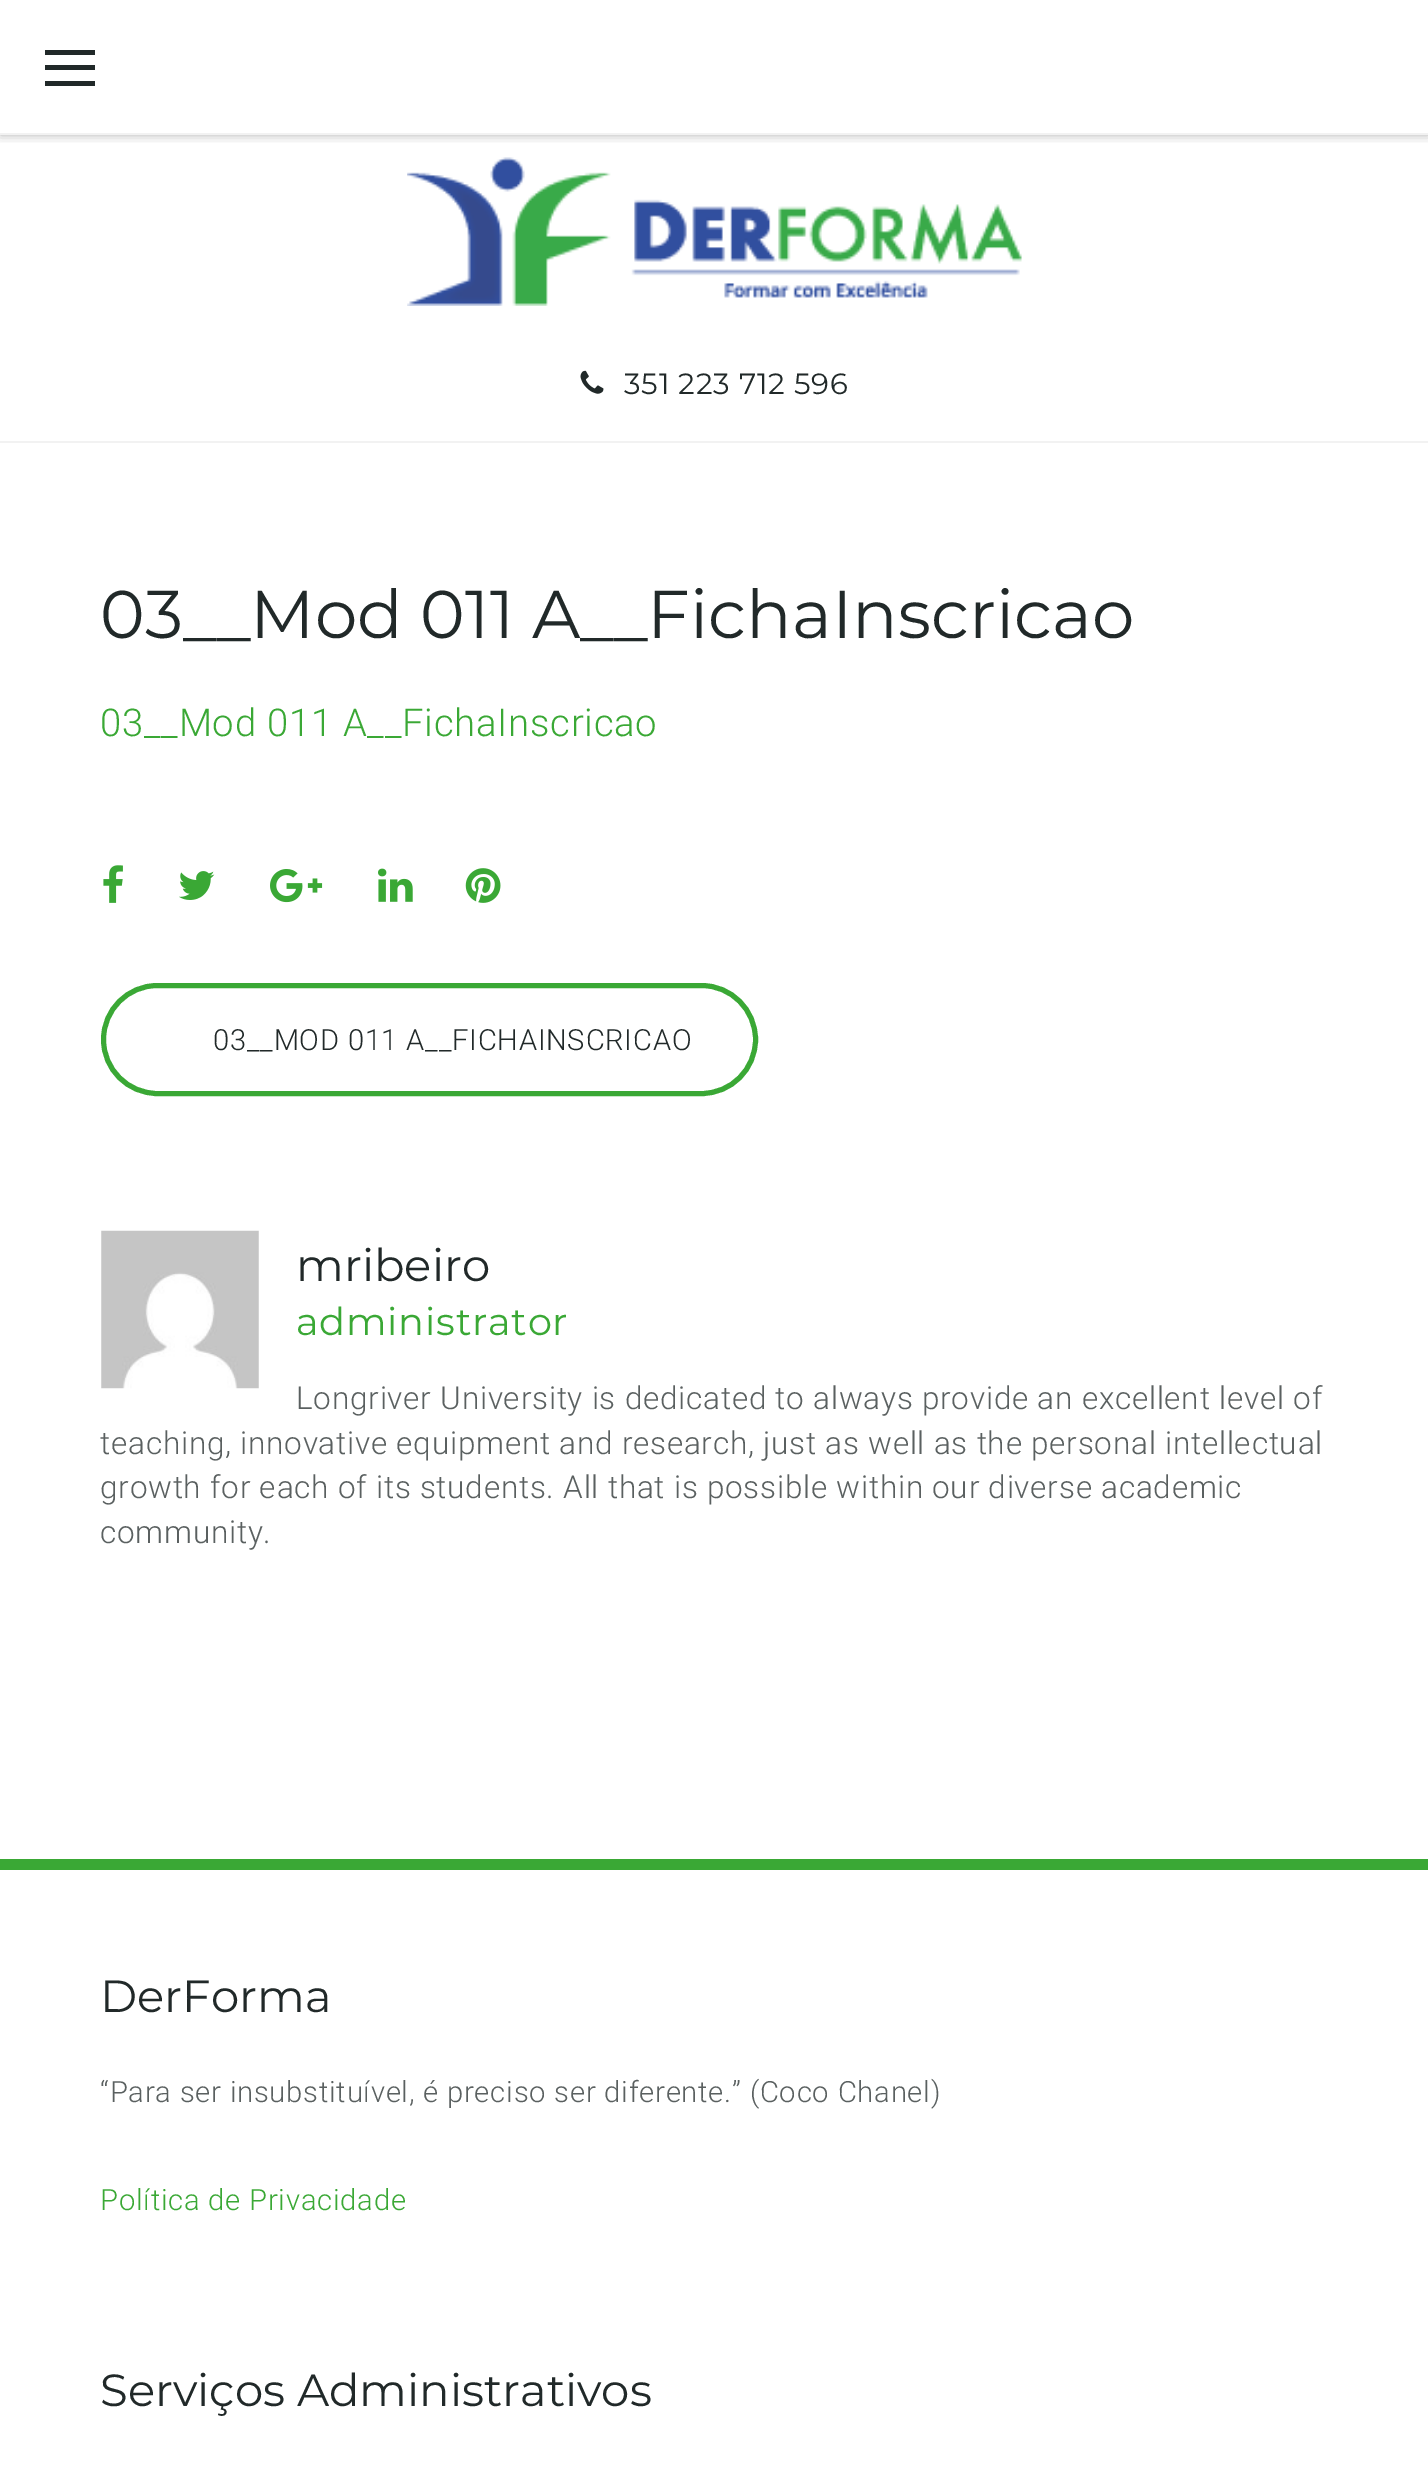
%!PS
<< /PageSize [1428 2484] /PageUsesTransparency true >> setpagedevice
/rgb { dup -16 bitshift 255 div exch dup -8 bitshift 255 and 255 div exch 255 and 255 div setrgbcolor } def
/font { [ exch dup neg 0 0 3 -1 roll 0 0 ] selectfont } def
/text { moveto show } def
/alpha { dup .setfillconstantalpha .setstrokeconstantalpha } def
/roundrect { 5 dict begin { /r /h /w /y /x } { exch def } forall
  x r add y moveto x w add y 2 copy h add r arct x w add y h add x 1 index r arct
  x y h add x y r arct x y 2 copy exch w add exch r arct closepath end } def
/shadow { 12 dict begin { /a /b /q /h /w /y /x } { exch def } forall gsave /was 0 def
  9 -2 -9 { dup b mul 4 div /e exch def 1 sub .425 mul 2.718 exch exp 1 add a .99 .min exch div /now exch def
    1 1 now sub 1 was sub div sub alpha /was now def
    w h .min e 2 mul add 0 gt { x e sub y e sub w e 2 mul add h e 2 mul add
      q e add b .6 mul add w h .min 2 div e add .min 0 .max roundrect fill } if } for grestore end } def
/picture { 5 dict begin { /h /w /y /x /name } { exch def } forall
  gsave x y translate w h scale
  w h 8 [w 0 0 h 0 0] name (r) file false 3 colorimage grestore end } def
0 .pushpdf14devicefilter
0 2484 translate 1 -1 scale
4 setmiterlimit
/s1 { /Montserrat-Regular 67.5 font 16#212929 rgb } def
/s2 { /Montserrat-Regular 45 font 16#212929 rgb } def
16#FFFFFF rgb
0 0 1428 2484 rectfill
16#F2F2F2 rgb
0 441 1428 2 rectfill
gsave
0 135 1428 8 rectclip
16#000000 rgb
0 0 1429 135 0 5.5 0.3 shadow
grestore
0 133 1428 2 rectfill
16#212929 rgb
45 65 50 5 rectfill
45 50 50 5 rectfill
45 81 50 5 rectfill
(pic1.raw) 407 157 615 149 picture
(pic2.raw) 580 370 24 24 picture
/Montserrat-Regular 29.25 font
624 394 moveto 0.77 0 (351 223 712 596) ashow
s1
(03__Mod 011 A__FichaInscricao) 100 638 text
/Roboto-Light 38.25 font
16#3AA835 rgb
100 736 moveto 0.77 0 (03__Mod 011 A__FichaInscricao) ashow
(pic3.raw) 103 865 20 38 picture
(pic4.raw) 179 871 36 29 picture
(pic5.raw) 270 869 53 34 picture
(pic6.raw) 378 868 35 34 picture
(pic7.raw) 465 868 36 35 picture
5 setlinewidth
103.5 985.5 652 108 54 roundrect stroke
/Roboto-Light 29.1 font
16#212929 rgb
213 1050 moveto 0.77 0 (03__MOD 011 A__FICHAINSCRICAO) ashow
(pic8.raw) 101 1230 158 159 picture
s2
(mribeiro) 296 1281 text
/Montserrat-Regular 38.25 font
16#3AA835 rgb
296 1335 moveto 0.77 0 (administrator) ashow
/Roboto-Light 31.5 font
16#5A6060 rgb
296 1409 moveto 0.77 0 (Longriver University is dedicated to always provide an excellent level of) ashow
100 1454 moveto 0.77 0 (teaching, innovative equipment and research, just as well as the personal intellectual) ashow
100 1498 moveto 0.77 0 (growth for each of its students. All that is possible within our diverse academic) ashow
100 1543 moveto 0.77 0 (community.) ashow
16#3AA835 rgb
0 1859 1428 11 rectfill
s2
(DerForma) 100 2012 text
/Roboto-Light 29.25 font
16#5A6060 rgb
100 2102 moveto 0.77 0 (“Para ser insubstituível, é preciso ser diferente.” \(Coco Chanel\)) ashow
16#3AA835 rgb
100 2210 moveto 0.77 0 (Política de Privacidade) ashow
s2
(Serviços Administrativos) 100 2406 text
.poppdf14devicefilter showpage
